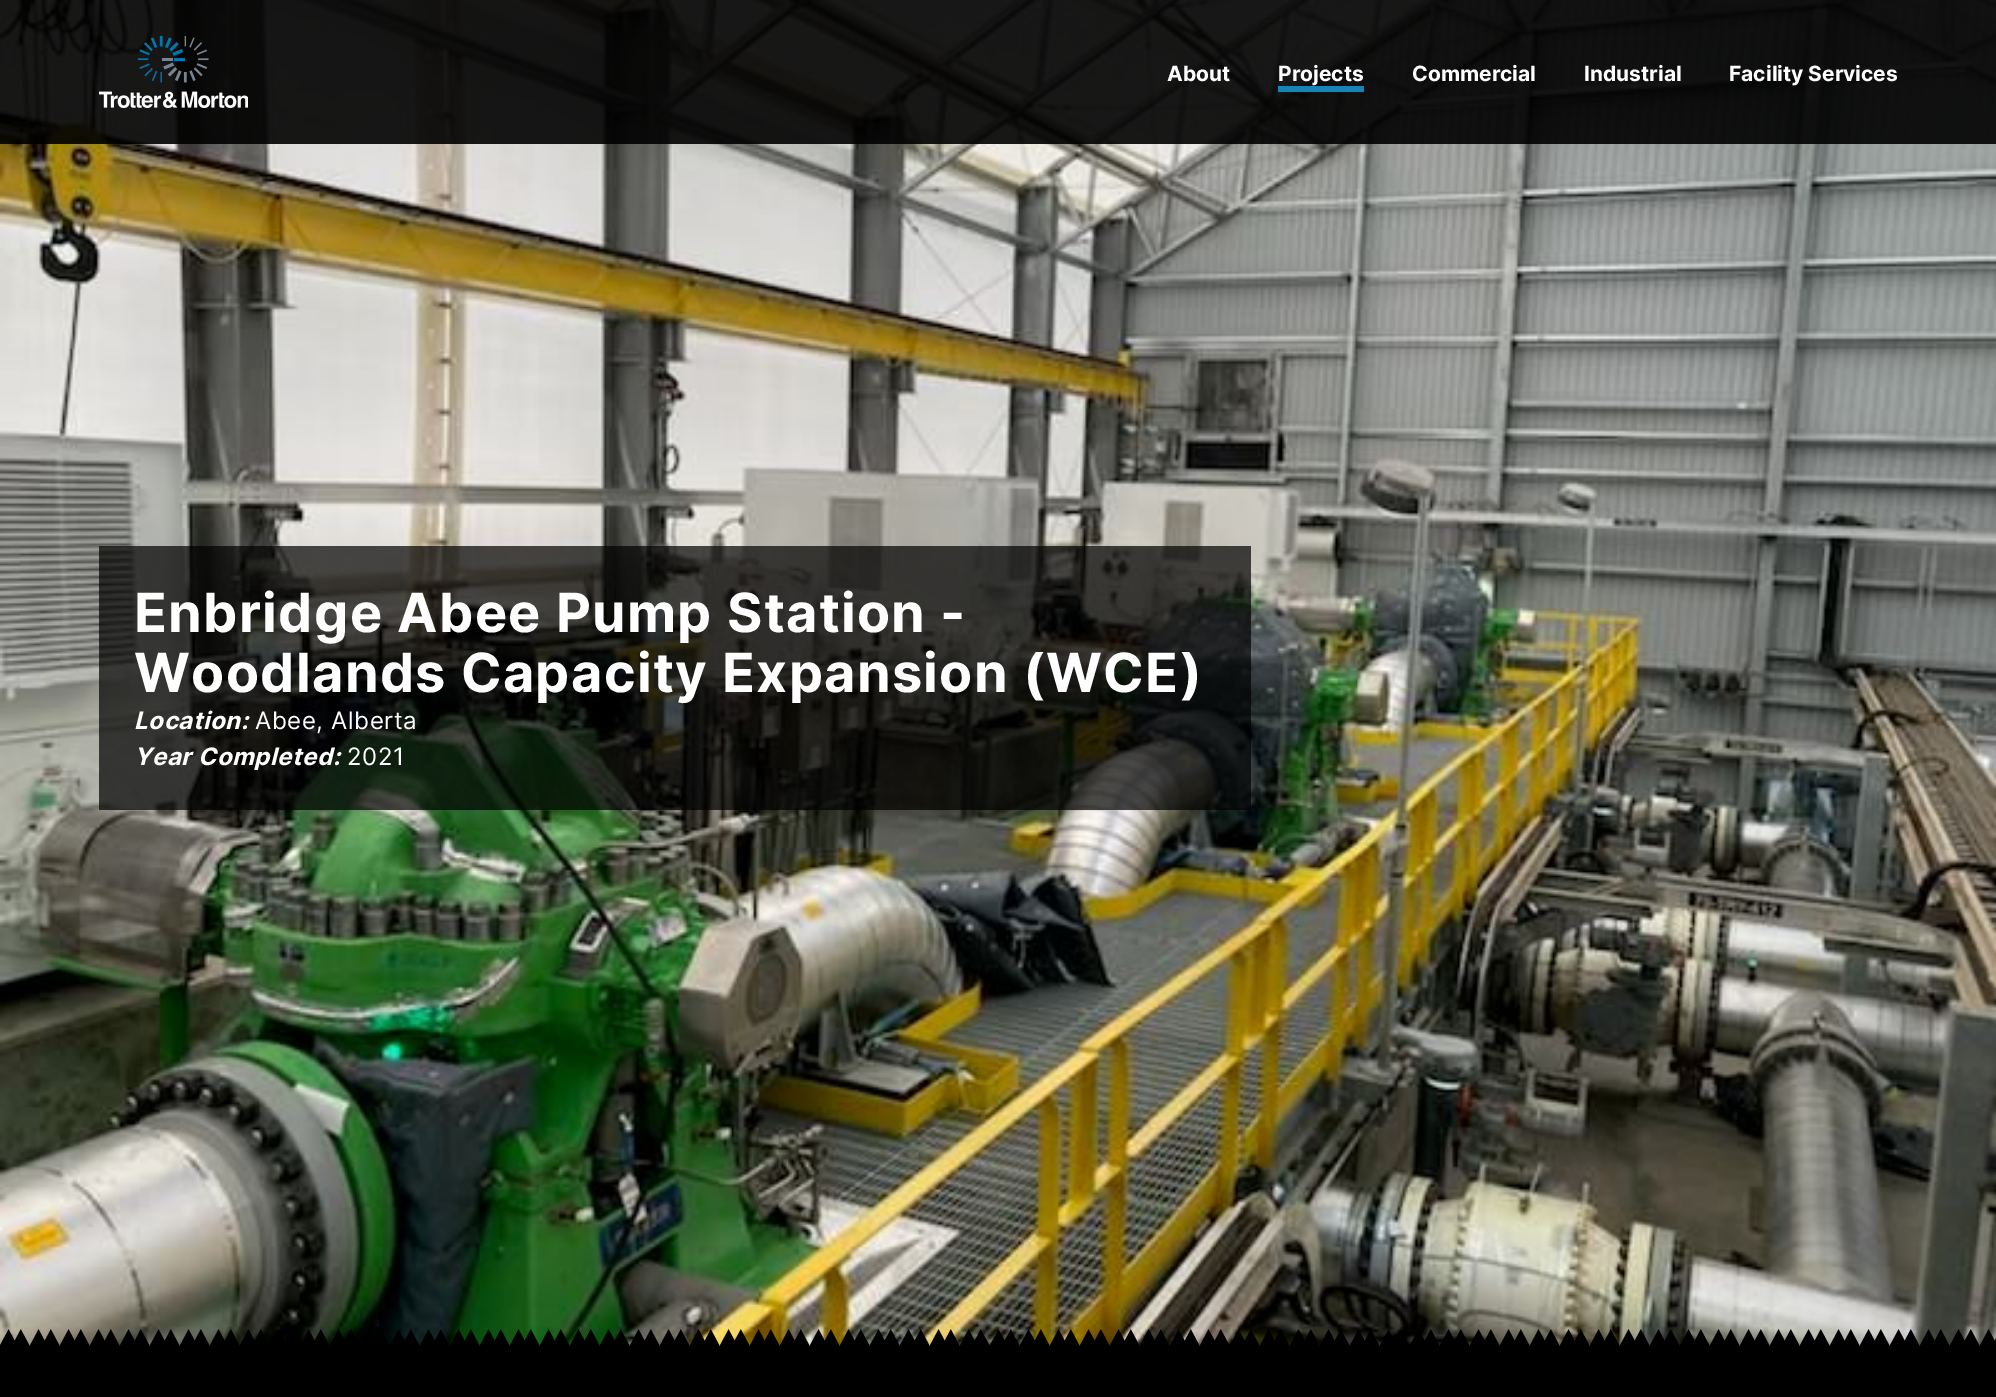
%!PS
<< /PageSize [1996 1397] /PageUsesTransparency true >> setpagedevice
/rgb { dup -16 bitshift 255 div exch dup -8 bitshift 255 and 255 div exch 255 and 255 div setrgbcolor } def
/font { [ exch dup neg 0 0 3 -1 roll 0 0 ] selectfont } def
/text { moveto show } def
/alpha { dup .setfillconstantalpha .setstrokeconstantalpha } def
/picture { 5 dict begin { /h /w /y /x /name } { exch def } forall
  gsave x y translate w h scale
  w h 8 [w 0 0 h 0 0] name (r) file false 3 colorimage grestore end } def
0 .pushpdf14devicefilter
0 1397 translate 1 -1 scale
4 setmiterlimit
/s1 { /Inter-Bold 21 font 16#FFFFFF rgb } def
16#FFFFFF rgb
0 0 1996 1397 rectfill
(pic2.raw) 0 0 1996 1347 picture
0.9 alpha
16#000000 rgb
0 0 1996 144 rectfill
1 alpha
(pic1.raw) 99 36 149 72 picture
s1
(About) 1167 81 text
(Projects) 1278 81 text
16#1584B9 rgb
1278 86 86 6 rectfill
s1
(Commercial) 1412 81 text
(Industrial) 1584 81 text
(Facility Services) 1729 81 text
0.7 alpha
16#000000 rgb
99 546 1152 264 rectfill
/Inter-Bold 54 font
1 alpha
16#FFFFFF rgb
134 632 moveto 1.35 0 (Enbridge Abee Pump Station -) ashow
134 692 moveto 1.35 0 (Woodlands Capacity Expansion \(WCE\)) ashow
/Inter-BoldItalic 24 font
134 729 moveto 0.6 0 (Location:) ashow
/Inter-Regular 24 font
255 729 moveto 0.6 0 (Abee, Alberta) ashow
/Inter-BoldItalic 24 font
134 765 moveto 0.6 0 (Year Completed:) ashow
/Inter-Regular 24 font
347 765 moveto 0.6 0 (2021) ashow
(pic3.raw) 0 1329 1996 27 picture
16#000000 rgb
0 1356 1996 41 rectfill
.poppdf14devicefilter showpage
